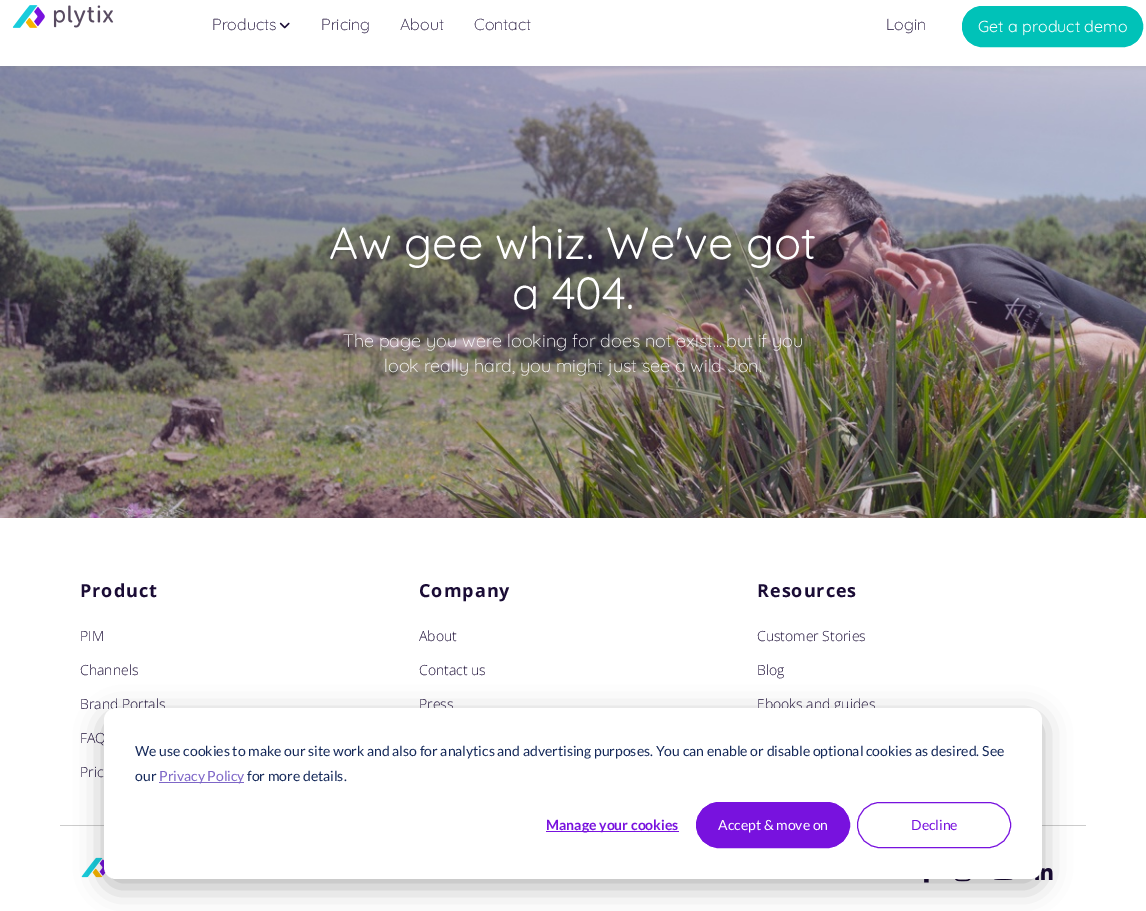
%!PS
<< /PageSize [1146 911] /PageUsesTransparency true >> setpagedevice
/rgb { dup -16 bitshift 255 div exch dup -8 bitshift 255 and 255 div exch 255 and 255 div setrgbcolor } def
/font { [ exch dup neg 0 0 3 -1 roll 0 0 ] selectfont } def
/text { moveto show } def
/alpha { dup .setfillconstantalpha .setstrokeconstantalpha } def
/roundrect { 5 dict begin { /r /h /w /y /x } { exch def } forall
  x r add y moveto x w add y 2 copy h add r arct x w add y h add x 1 index r arct
  x y h add x y r arct x y 2 copy exch w add exch r arct closepath end } def
/shadow { 12 dict begin { /a /b /q /h /w /y /x } { exch def } forall gsave /was 0 def
  9 -2 -9 { dup b mul 4 div /e exch def 1 sub .425 mul 2.718 exch exp 1 add a .99 .min exch div /now exch def
    1 1 now sub 1 was sub div sub alpha /was now def
    w h .min e 2 mul add 0 gt { x e sub y e sub w e 2 mul add h e 2 mul add
      q e add b .6 mul add w h .min 2 div e add .min 0 .max roundrect fill } if } for grestore end } def
/picture { 5 dict begin { /h /w /y /x /name } { exch def } forall
  gsave x y translate w h scale
  w h 8 [w 0 0 h 0 0] name (r) file false 3 colorimage grestore end } def
0 .pushpdf14devicefilter
0 911 translate 1 -1 scale
4 setmiterlimit
/s1 { /Quicksand-Light 16 font 16#1A0C35 rgb } def
/s2 { /Quicksand-Regular 16 font 16#FFFFFF rgb } def
/s3 { /Quicksand-Regular 45 font 16#FFFFFF rgb } def
/s4 { /Quicksand-Light 18 font 16#FFFFFF rgb } def
/s5 { /OpenSans-Light 14 font 16#1A0C35 rgb } def
/s6 { /Lato-Regular 14 font 16#15295A rgb } def
/s7 { /Lato-Regular 14 font 16#7E66C7 rgb } def
/s8 { /Lato-Bold 14 font 16#7812DE rgb } def
/s9 { /Lato-Regular 14 font 16#FFFFFF rgb } def
/s10 { /Lato-Regular 14 font 16#7812DE rgb } def
16#FFFFFF rgb
0 0 1146 911 rectfill
(pic1.raw) 0 66 1146 452 picture
16#38404A rgb
0 -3 1146 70 0 2 0.1 shadow
16#FFFFFF rgb
0 0 1146 66 rectfill
(pic2.raw) 12 5 102 23 picture
s1
(Products) 212 30 text
(pic3.raw) 279 22 11 7 picture
(Pricing) 321 30 text
(About) 400 30 text
(Contact) 474 30 text
(Login) 886 30 text
16#00C2B8 rgb
962.5 6.5 180 40 19.5 roundrect gsave fill grestore
stroke
s2
(Get a product demo) 978 32 text
s3
(Aw gee whiz. We've got) 329 259 text
(a 404.) 512 309 text
s4
(The page you were looking for does not exist... but if you) 343 347 text
(look really hard, you might just see a wild Jon.) 384 372 text
/OpenSans-Bold 18 font
16#1A0C35 rgb
80 597 moveto 1 0 (Product) ashow
s5
(PIM) 80 641 text
(Channels) 80 675 text
(Brand Portals) 80 709 text
(FAQ) 80 743 text
(Pric) 80 777 text
/OpenSans-Bold 18 font
419 597 moveto 1 0 (Company) ashow
s5
(About) 419 641 text
(Contact us) 419 675 text
(Press) 419 709 text
/OpenSans-Bold 18 font
757 597 moveto 1 0 (Resources) ashow
s5
(Customer Stories) 757 641 text
(Blog) 757 675 text
(Ebooks and guides) 757 709 text
16#CCCCCC rgb
60 825 1026 1 rectfill
(pic4.raw) 81 857 25 21 picture
(pic5.raw) 1035 868 18 12 picture
(pic6.raw) 924 879 5 4 picture
(pic7.raw) 955 879 16 3 picture
(pic8.raw) 994 879 19 1 picture
16#000000 rgb
104 716 938 171 12 14 0.28 shadow
16#FFFFFF rgb
104 708 938 171 12 roundrect fill
s6
(We use cookies to make our site work and also for analytics and advertising purposes. You can enable or disable optional cookies as desired. See) 135 756 text
(our) 135 781 text
16#7E66C7 rgb
159 782 85 1 rectfill
(Privacy Policy) 159 781 text
s6
(for more details.) 247 781 text
16#7812DE rgb
546 831 133 1 rectfill
s8
(Manage your cookies) 546 830 text
696.5 802.5 153 45 22.5 roundrect gsave fill grestore
stroke
s9
(Accept & move on) 718 830 text
16#7812DE rgb
857.5 802.5 153 45 22.5 roundrect stroke
(Decline) 911 830 text
.poppdf14devicefilter showpage
